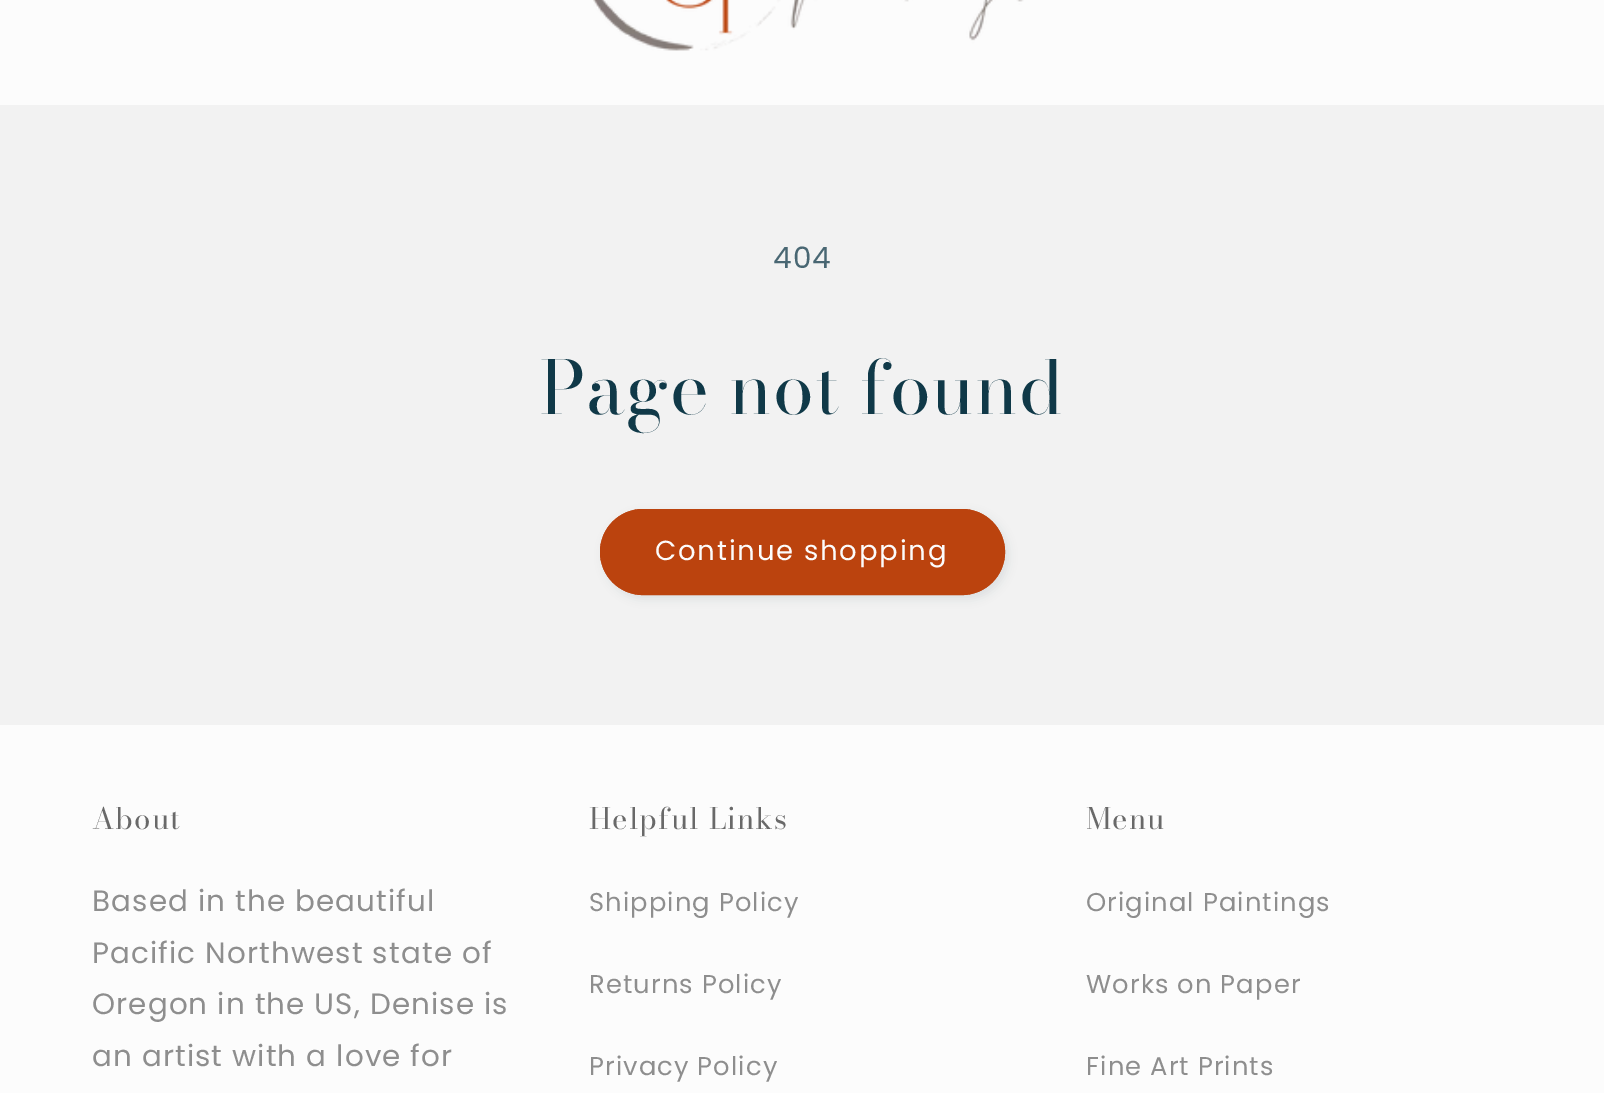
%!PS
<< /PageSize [1604 1093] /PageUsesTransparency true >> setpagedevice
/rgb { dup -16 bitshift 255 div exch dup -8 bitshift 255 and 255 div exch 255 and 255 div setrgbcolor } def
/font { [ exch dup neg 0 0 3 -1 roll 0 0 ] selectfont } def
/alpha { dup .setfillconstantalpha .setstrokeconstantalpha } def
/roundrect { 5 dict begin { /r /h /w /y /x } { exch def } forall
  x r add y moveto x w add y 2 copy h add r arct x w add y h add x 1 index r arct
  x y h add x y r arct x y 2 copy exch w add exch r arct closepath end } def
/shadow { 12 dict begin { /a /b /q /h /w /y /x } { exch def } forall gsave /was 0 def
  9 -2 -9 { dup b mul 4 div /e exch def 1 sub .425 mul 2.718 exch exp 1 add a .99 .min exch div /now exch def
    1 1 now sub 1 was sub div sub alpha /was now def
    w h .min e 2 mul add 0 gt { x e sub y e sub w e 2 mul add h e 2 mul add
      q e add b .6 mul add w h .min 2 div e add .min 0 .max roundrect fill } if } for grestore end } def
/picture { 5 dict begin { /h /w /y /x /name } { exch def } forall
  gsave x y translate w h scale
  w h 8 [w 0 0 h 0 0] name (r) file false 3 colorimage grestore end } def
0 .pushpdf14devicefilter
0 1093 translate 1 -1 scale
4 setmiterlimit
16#F2F2F2 rgb
0 0 1604 1093 rectfill
16#FCFCFC rgb
0 0 1604 105 rectfill
(pic1.raw) 593 0 431 51 picture
/Poppins-Regular 29.4 font
16#496773 rgb
773 268 moveto 1.1 0 (404) ashow
/BodoniModa-Regular 73.5 font
16#103948 rgb
540 414 moveto 1.1 0 (Page not found) ashow
604 513 404 86 43 4.5 0.1 shadow
16#BB430E rgb
600 509 405 86 43 roundrect fill
2 setlinewidth
601 510 403 84 42 roundrect stroke
/Poppins-Regular 27.5 font
16#FCFCFC rgb
655 560 moveto 1.8 0 (Continue shopping) ashow
0 725 1604 368 rectfill
/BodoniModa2-Regular 29.4 font
16#696969 rgb
92 829 moveto 1.1 0 (About) ashow
/Poppins-Regular 29.4 font
16#8E8E8E rgb
92 911 moveto 1.1 0 (Based in the beautiful) ashow
92 963 moveto 1.1 0 (Pacific Northwest state of) ashow
92 1014 moveto 1.1 0 (Oregon in the US, Denise is) ashow
92 1066 moveto 1.1 0 (an artist with a love for) ashow
/BodoniModa2-Regular 29.4 font
16#696969 rgb
589 829 moveto 1.1 0 (Helpful Links) ashow
/Poppins-Regular 25.75 font
16#8E8E8E rgb
589 911 moveto 1.1 0 (Shipping Policy) ashow
589 993 moveto 1.1 0 (Returns Policy) ashow
589 1075 moveto 1.1 0 (Privacy Policy) ashow
/BodoniModa2-Regular 29.4 font
16#696969 rgb
1086 829 moveto 1.1 0 (Menu) ashow
/Poppins-Regular 25.75 font
16#8E8E8E rgb
1086 911 moveto 1.1 0 (Original Paintings) ashow
1086 993 moveto 1.1 0 (Works on Paper) ashow
1086 1075 moveto 1.1 0 (Fine Art Prints) ashow
.poppdf14devicefilter showpage
